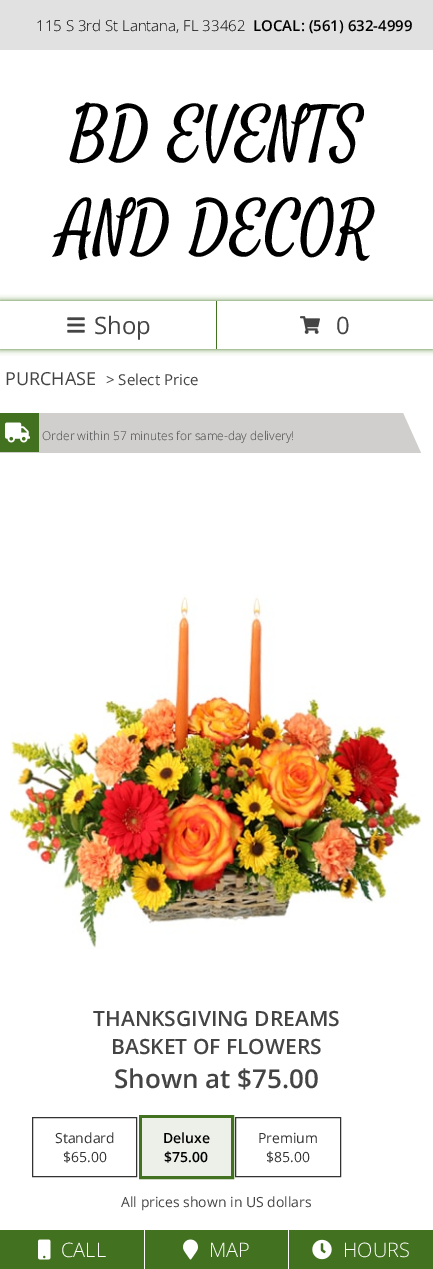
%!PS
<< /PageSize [433 1269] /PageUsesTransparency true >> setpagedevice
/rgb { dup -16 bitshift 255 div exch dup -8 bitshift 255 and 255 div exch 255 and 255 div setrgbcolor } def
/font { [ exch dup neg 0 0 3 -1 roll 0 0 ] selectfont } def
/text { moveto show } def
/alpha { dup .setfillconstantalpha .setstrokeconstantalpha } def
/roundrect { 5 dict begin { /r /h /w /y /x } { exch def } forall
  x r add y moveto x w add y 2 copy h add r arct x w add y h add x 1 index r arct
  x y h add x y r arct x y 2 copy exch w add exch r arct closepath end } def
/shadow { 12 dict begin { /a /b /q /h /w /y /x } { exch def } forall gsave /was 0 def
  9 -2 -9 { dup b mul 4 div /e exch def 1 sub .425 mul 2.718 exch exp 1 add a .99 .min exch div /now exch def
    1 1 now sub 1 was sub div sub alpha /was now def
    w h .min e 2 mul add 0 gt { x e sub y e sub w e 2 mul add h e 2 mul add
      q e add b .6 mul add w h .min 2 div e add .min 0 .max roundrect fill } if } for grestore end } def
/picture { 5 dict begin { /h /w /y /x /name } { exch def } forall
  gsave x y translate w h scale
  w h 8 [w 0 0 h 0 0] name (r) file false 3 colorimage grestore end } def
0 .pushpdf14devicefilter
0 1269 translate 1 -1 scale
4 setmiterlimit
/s1 { /OpenSans-Light 15 font 16#000000 rgb } def
/s2 { /OpenSans-SemiBold 15 font 16#000000 rgb } def
/s3 { /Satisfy-Regular 65 font 16#000000 rgb } def
/s4 { /OpenSans-Regular 24 font 16#444444 rgb } def
/s5 { /OpenSans-Regular 18 font 16#444444 rgb } def
/s6 { /OpenSans-Regular 15 font 16#444444 rgb } def
/s7 { /OpenSans-Light 12 font 16#444444 rgb } def
/s8 { /OpenSans-SemiBold 21 font 16#444444 rgb } def
/s9 { /OpenSans-SemiBold 26 font 16#444444 rgb } def
/s10 { /OpenSans-Regular 14 font 16#333333 rgb } def
/s11 { /OpenSans-SemiBold 14 font 16#000000 rgb } def
/s12 { /OpenSans-Regular 14 font 16#444444 rgb } def
/s13 { /OpenSans-Light 20 font 16#FFFFFF rgb } def
16#FFFFFF rgb
0 0 433 1269 rectfill
16#E1E1E1 rgb
0 0 433 50 rectfill
s1
(115 S 3rd St Lantana, FL 33462) 36 31 text
s2
(LOCAL: \(561\) 632-4999) 253 31 text
s3
(BD EVENTS) 70 151 text
(AND DECOR) 59 245 text
16#42721F rgb
0 301 433 48 0 3 1 shadow
216 301 1 48 rectfill
16#FFFFFF rgb
0 301 216 48 rectfill
(pic1.raw) 67 317 18 16 picture
s4
(Shop) 94 334 text
16#FFFFFF rgb
217 301 216 48 rectfill
(pic2.raw) 300 316 20 18 picture
s4
(0) 336 334 text
s5
(PURCHASE) 5 385 text
s6
(> Select Price) 106 385 text
16#D0CFCD rgb
421 453 moveto 0 453 lineto 0 413 lineto 403 413 lineto closepath fill
16#42721F rgb
0 413 39 39 rectfill
(pic3.raw) 5 422 25 21 picture
s7
(Order within 57 minutes for same-day delivery!) 42 440 text
(pic4.raw) 10 594 412 355 picture
s8
(THANKSGIVING DREAMS) 93 1026 text
(BASKET OF FLOWERS) 111 1054 text
s9
(Shown at $75.00) 114 1088 text
16#333333 rgb
32.5 1117.5 104 59 rectstroke
s10
(Standard) 55 1143 text
($65.00) 63 1162 text
16#42721F rgb
3 setlinewidth
140.5 1116.5 92 61 rectstroke
16#ECF0E8 rgb
142 1118 89 58 rectfill
s11
(Deluxe) 163 1143 text
($75.00) 164 1162 text
16#333333 rgb
1 setlinewidth
235.5 1117.5 105 59 rectstroke
s10
(Premium) 258 1143 text
($85.00) 266 1162 text
s12
(All prices shown in US dollars) 121 1207 text
16#42721F rgb
0 1230 144 39 rectfill
(pic5.raw) 38 1239 13 21 picture
s13
(CALL) 61 1257 text
16#42721F rgb
145 1230 143 39 rectfill
(pic6.raw) 183 1239 15 21 picture
s13
(MAP) 209 1257 text
16#42721F rgb
289 1230 144 39 rectfill
(pic7.raw) 312 1239 20 21 picture
s13
(HOURS) 343 1257 text
.poppdf14devicefilter showpage
